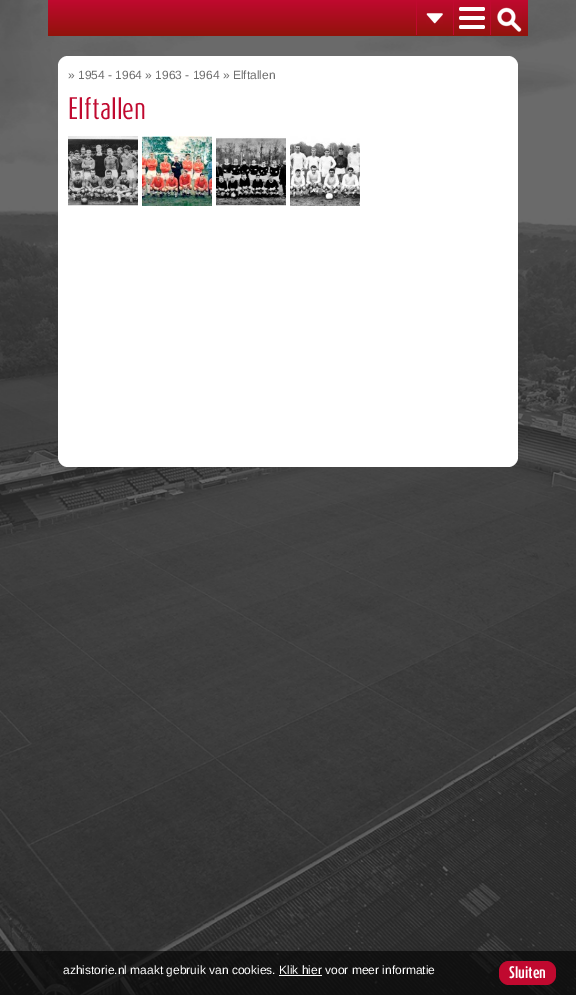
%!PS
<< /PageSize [576 995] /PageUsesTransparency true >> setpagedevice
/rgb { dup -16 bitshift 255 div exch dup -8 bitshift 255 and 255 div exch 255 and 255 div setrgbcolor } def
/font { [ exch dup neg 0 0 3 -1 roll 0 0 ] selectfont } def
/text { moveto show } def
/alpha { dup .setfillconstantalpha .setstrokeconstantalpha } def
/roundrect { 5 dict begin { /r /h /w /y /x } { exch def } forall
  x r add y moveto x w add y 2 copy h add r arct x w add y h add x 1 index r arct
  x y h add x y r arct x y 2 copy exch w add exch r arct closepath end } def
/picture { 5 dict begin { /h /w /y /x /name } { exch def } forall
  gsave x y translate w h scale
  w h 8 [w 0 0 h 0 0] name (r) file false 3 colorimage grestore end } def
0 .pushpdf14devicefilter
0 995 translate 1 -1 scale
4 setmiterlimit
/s1 { /LiberationSans-Regular 12 font 16#6E6E6E rgb } def
/s2 { /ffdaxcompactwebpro-Regular 26 font 16#C0092F rgb } def
/s3 { /LiberationSans-Regular 12 font 16#FFFFFF rgb } def
/s4 { /ffdaxcompactwebpro-Bold 14 font 16#FFFFFF rgb } def
16#FFFFFF rgb
0 0 576 995 rectfill
(pic1.raw) 0 0 576 995 picture
gsave 48 0 moveto 528 0 lineto 528 36 lineto 48 36 lineto closepath clip newpath
<< /ShadingType 2 /ColorSpace /DeviceRGB /Coords [288 0 288 36] /Extend [true true] /Function << /FunctionType 2 /Domain [0 1] /C0 [0.753 0.035 0.184] /C1 [0.569 0.075 0.043] /N 1 >> >> shfill grestore
(pic2.raw) 426 13 17 11 picture
16#C0092F rgb
416 0 1 35 rectfill
453 0 1 35 rectfill
16#FFFFFF rgb
459 7 26 4 2 roundrect fill
459 16 26 4 2 roundrect fill
459 25 26 4 2 roundrect fill
(pic3.raw) 497 7 25 25 picture
16#C0092F rgb
490 0 1 35 rectfill
16#FFFFFF rgb
58 56 460 411 10 roundrect fill
s1
(» 1954 - 1964 » 1963 - 1964 » Elftallen) 68 79 text
s2
(Elftallen) 68 119 text
(pic4.raw) 68 136 70 70 picture
(pic5.raw) 142 136 70 70 picture
(pic6.raw) 216 136 70 70 picture
(pic7.raw) 290 136 70 70 picture
0.6 alpha
16#000000 rgb
0 951 576 44 rectfill
1 alpha
s3
(azhistorie.nl maakt gebruik van cookies. Klik hier voor meer informatie) 63 974 text
279 975 43 1 rectfill
16#C0092F rgb
499 961 57 24 10 roundrect fill
s4
(Sluiten) 509 978 text
.poppdf14devicefilter showpage
